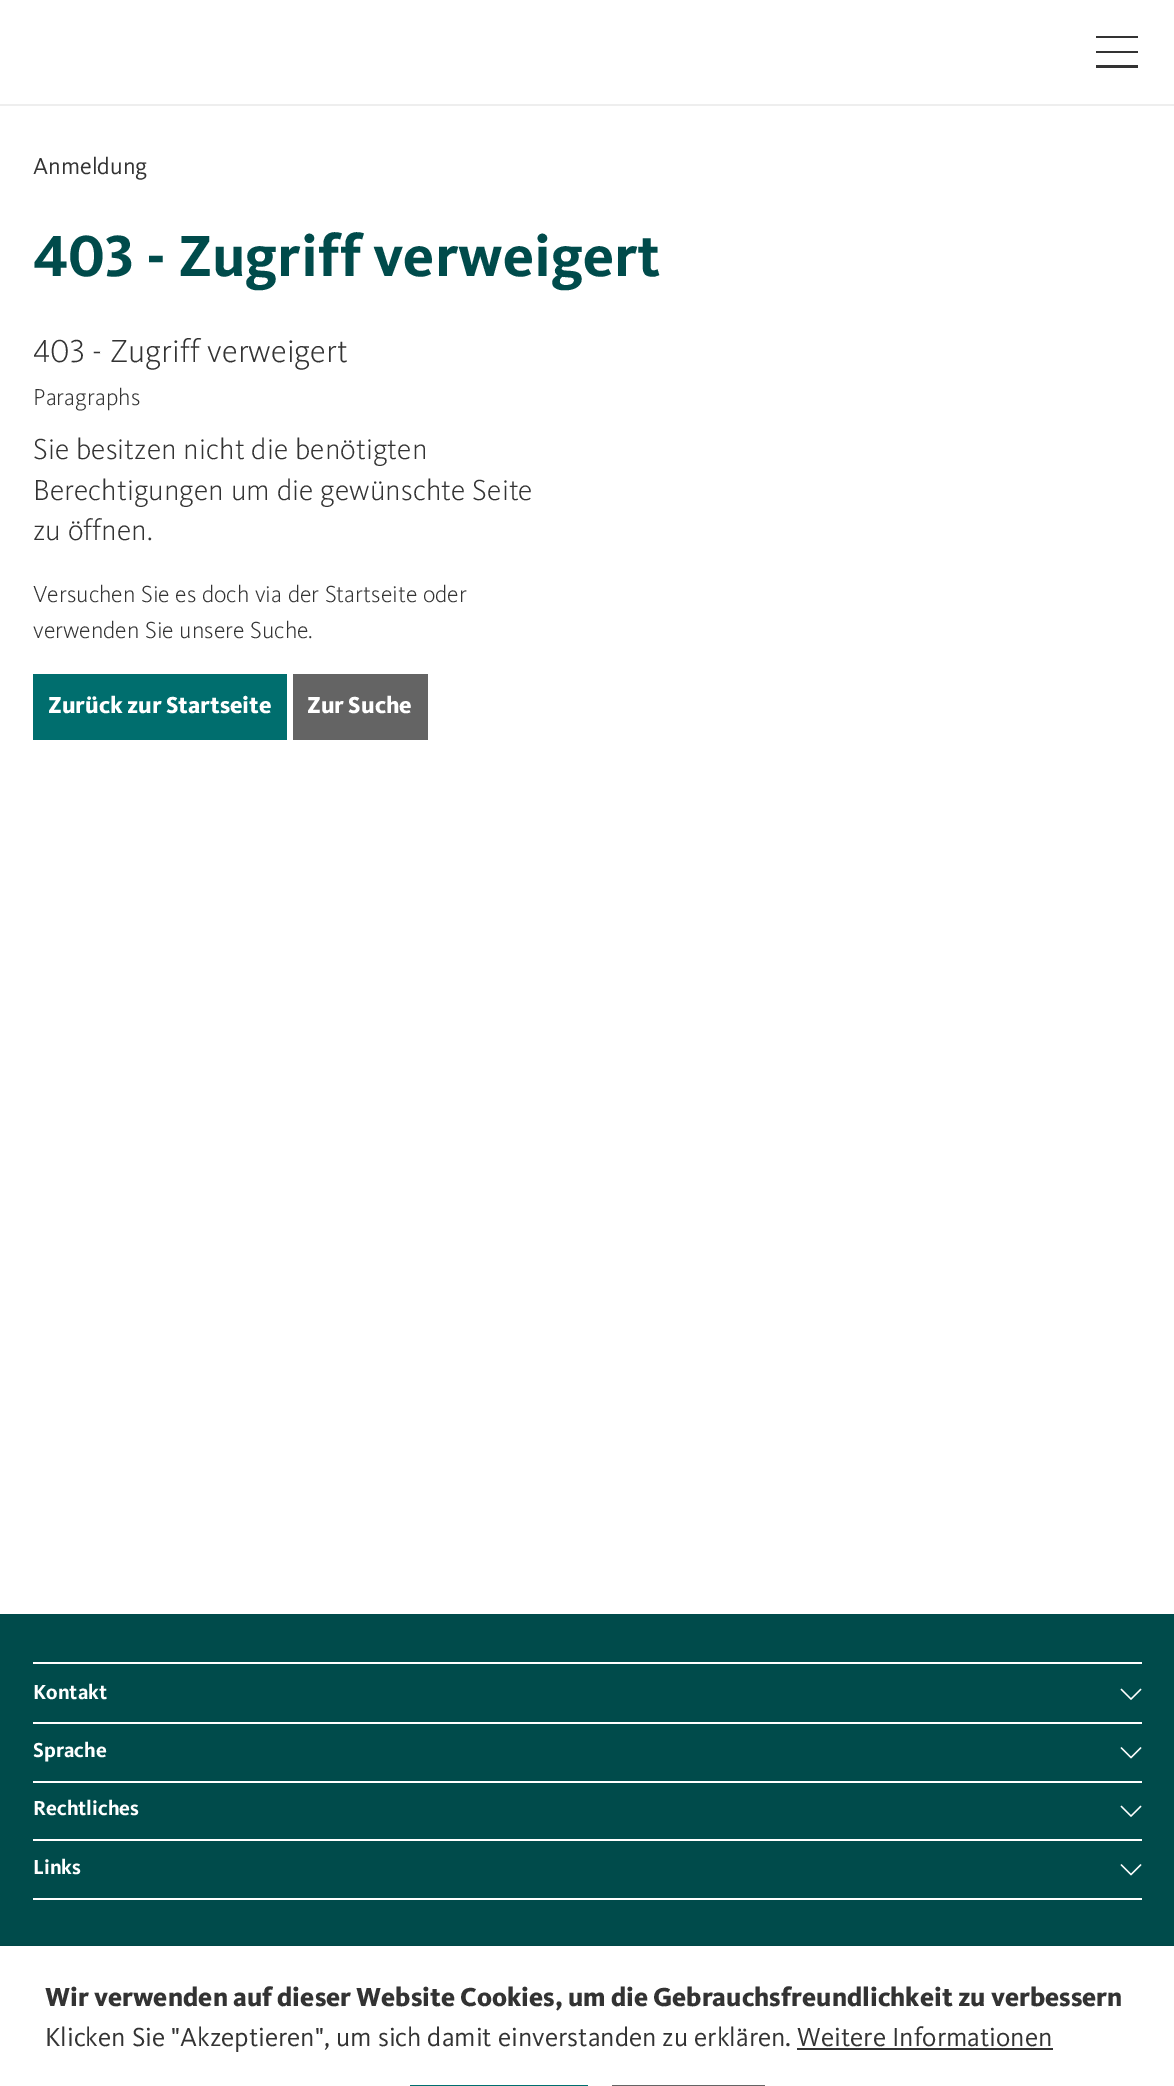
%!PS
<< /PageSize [1174 2086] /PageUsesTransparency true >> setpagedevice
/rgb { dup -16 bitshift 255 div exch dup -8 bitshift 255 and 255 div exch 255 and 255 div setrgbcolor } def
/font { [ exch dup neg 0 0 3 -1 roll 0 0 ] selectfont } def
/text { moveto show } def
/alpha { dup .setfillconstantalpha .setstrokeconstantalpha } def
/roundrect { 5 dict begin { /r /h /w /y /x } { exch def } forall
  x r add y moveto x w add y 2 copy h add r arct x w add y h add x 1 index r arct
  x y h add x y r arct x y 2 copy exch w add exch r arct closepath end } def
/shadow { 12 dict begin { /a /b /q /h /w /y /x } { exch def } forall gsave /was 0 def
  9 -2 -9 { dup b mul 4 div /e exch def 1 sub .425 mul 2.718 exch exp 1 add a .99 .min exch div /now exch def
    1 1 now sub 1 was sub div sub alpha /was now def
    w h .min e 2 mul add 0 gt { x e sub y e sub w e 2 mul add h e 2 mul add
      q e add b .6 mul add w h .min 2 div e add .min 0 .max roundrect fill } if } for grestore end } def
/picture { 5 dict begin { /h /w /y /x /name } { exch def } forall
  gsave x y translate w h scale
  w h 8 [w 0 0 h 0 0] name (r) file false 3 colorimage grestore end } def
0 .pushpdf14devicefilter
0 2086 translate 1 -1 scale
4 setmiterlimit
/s1 { /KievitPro-Regular 24 font 16#333333 rgb } def
/s2 { /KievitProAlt-Bold 60 font 16#004B4B rgb } def
/s3 { /KievitProAlt-Light 33 font 16#333333 rgb } def
/s4 { /KievitPro-Light 24 font 16#333333 rgb } def
/s5 { /KievitPro-Light 30 font 16#333333 rgb } def
/s6 { /KievitPro-ExtraBold 24 font 16#FFFFFF rgb } def
/s7 { /KievitPro-Bold 21 font 16#FFFFFF rgb } def
/s8 { /KievitPro-ExtraBold 27 font 16#333333 rgb } def
/s9 { /KievitPro-Regular 27 font 16#333333 rgb } def
16#FFFFFF rgb
0 0 1174 2086 rectfill
16#EEEEEE rgb
0 104 1174 2 rectfill
16#333333 rgb
1096 36 moveto 1138 36 lineto 1138 38 lineto 1096 38 lineto closepath 1096 51 moveto 1138 51 lineto 1138 53 lineto 1096 53 lineto closepath 1096 65 moveto 1138 65 lineto 1138 68 lineto 1096 68 lineto closepath fill
s1
(Anmeldung) 33 174 text
s2
(403 - Zugriff verweigert) 33 276 text
s3
(403 - Zugriff verweigert) 33 362 text
s4
(Paragraphs) 33 405 text
s5
(Sie besitzen nicht die benötigten) 33 459 text
(Berechtigungen um die gewünschte Seite) 33 500 text
(zu öffnen.) 33 540 text
s4
(Versuchen Sie es doch via der Startseite oder) 33 602 text
(verwenden Sie unsere Suche.) 33 638 text
16#006E6E rgb
33 674 254 66 rectfill
s6
(Zurück zur Startseite) 48 713 text
16#646464 rgb
293 674 135 66 rectfill
s6
(Zur Suche) 307 713 text
16#004B4B rgb
0 1614 1174 332 rectfill
16#FFFFFF rgb
33 1662 1109 2 rectfill
33 1722 1109 2 rectfill
s7
(Kontakt) 33 1699 text
(pic1.raw) 1120 1688 22 12 picture
33 1781 1109 2 rectfill
(Sprache) 33 1757 text
(pic2.raw) 1120 1747 22 12 picture
33 1839 1109 2 rectfill
(Rechtliches) 33 1815 text
(pic1.raw) 1120 1805 22 12 picture
33 1898 1109 2 rectfill
(Links) 33 1874 text
(pic2.raw) 1120 1864 22 12 picture
16#000000 rgb
0 1949 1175 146 0 3 0.5 shadow
16#FFFFFF rgb
0 1946 1174 140 rectfill
s8
(Wir verwenden auf dieser Website Cookies, um die Gebrauchsfreundlichkeit zu verbessern) 45 2006 text
s9
(Klicken Sie "Akzeptieren", um sich damit einverstanden zu erklären.) 45 2046 text
(Weitere Informationen) 797 2046 text
797 2048 256 2 rectfill
16#006E6E rgb
410 2085 178 1 rectfill
16#646464 rgb
612 2085 153 1 rectfill
.poppdf14devicefilter showpage
